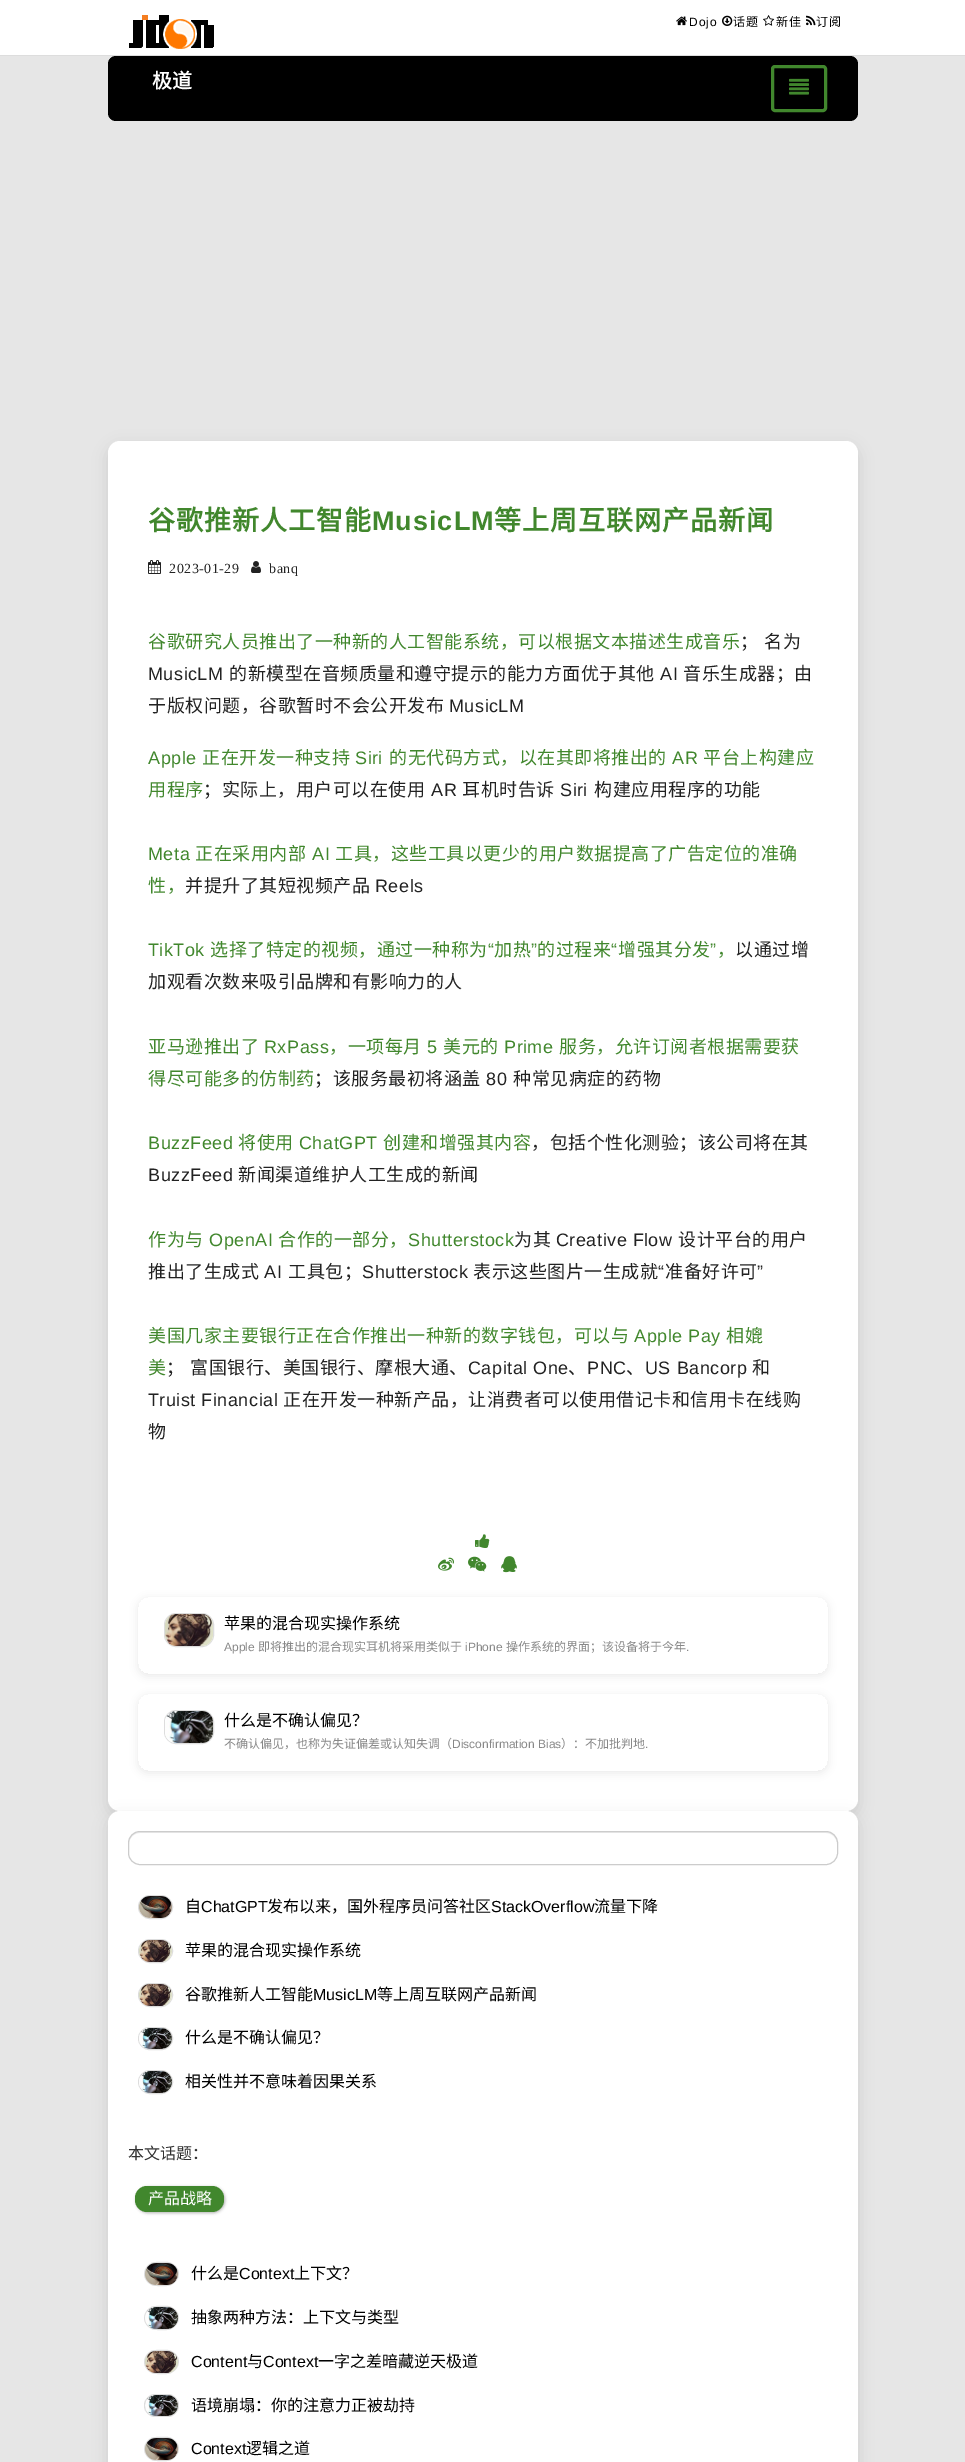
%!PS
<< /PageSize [965 2462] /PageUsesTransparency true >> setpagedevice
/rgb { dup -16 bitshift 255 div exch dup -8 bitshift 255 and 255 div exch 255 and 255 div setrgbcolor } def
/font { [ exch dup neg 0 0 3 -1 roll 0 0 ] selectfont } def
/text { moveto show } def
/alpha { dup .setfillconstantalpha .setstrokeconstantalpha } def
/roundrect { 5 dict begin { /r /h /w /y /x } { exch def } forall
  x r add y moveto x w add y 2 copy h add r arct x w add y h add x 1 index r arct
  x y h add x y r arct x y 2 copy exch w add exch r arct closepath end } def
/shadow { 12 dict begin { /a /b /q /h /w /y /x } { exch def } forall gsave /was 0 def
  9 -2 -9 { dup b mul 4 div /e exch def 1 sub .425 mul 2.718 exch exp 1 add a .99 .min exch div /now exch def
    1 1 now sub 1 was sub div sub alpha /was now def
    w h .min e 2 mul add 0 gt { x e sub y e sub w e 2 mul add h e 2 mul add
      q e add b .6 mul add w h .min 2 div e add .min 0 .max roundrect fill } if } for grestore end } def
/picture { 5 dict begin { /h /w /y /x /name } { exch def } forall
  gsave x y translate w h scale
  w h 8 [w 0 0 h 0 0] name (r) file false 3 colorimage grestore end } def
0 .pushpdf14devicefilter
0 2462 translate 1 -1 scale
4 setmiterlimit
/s1 { /NotoSansCJKSC-Bold 20 font 16#FFFFFF rgb } def
/s2 { /NotoSansCJKSC-Regular 16 font 16#000000 rgb } def
/s3 { /LiberationSans-Regular 12 font 16#888888 rgb } def
/s4 { /NotoSansCJKSC-Regular 12 font 16#888888 rgb } def
/s5 { /LiberationSans-Regular 16 font 16#000000 rgb } def
/s6 { /NotoSansCJKSC-Regular 16 font 16#333333 rgb } def
/s7 { /NotoSansCJKSC-Regular 16 font 16#FFFFFF rgb } def
16#E6E6E6 rgb
0 0 965 2462 rectfill
16#FFFFFF rgb
0 0 965 55 rectfill
16#DDDDDD rgb
0 55 965 1 rectfill
(pic1.raw) 129 15 85 34 picture
(pic2.raw) 676 16 11 10 picture
/LiberationSans-Regular 12 font
16#000000 rgb
689 26 moveto 1 0 (Dojo) ashow
(pic3.raw) 722 15 11 11 picture
/NotoSansCJKSC-Regular 12 font
733 26 moveto 1 0 (话题) ashow
(pic4.raw) 763 15 12 11 picture
776 26 moveto 1 0 (新佳) ashow
(pic5.raw) 806 15 10 11 picture
816 26 moveto 1 0 (订阅) ashow
108 56 750 65 8 roundrect fill
s1
(极道) 152 88 text
16#41872D rgb
3 setlinewidth
772.5 66.5 53 44 2.5 roundrect stroke
(pic6.raw) 789 78 20 17 picture
16#000000 rgb
108 446 750 1370 12 7.5 0.1 shadow
16#FFFFFF rgb
108 441 750 1370 12 roundrect fill
/NotoSansCJKSC-Bold 27 font
16#41872D rgb
148 530 moveto 1 0 (谷歌推新人工智能) ashow
/LiberationSans-Bold 27 font
372 530 moveto 1 0 (MusicLM) ashow
/NotoSansCJKSC-Bold 27 font
494 530 moveto 1 0 (等上周互联网产品新闻) ashow
(pic7.raw) 148 560 13 14 picture
/LiberationSerif-Regular 14 font
16#222222 rgb
169 573 moveto 0.5 0 (2023-01-29) ashow
(pic8.raw) 251 561 10 12 picture
269 573 moveto 0.5 0 (banq) ashow
/NotoSansCJKSC-Regular 18 font
16#41872D rgb
148 648 moveto 0.5 0 (谷歌研究人员推出了一种新的人工智能系统，可以根据文本描述生成音乐) ashow
16#222222 rgb
740 648 moveto 0.5 0 (；) ashow
764 648 moveto 0.5 0 (名为) ashow
/LiberationSans-Regular 18 font
148 680 moveto 0.5 0 (MusicLM) ashow
/NotoSansCJKSC-Regular 18 font
229 680 moveto 0.5 0 (的新模型在音频质量和遵守提示的能力方面优于其他) ashow
/LiberationSans-Regular 18 font
660 680 moveto 0.5 0 (AI) ashow
/NotoSansCJKSC-Regular 18 font
683 680 moveto 0.5 0 (音乐生成器；由) ashow
148 712 moveto 0.5 0 (于版权问题，谷歌暂时不会公开发布) ashow
/LiberationSans-Regular 18 font
449 712 moveto 0.5 0 (MusicLM) ashow
16#41872D rgb
148 764 moveto 0.5 0 (Apple) ashow
/NotoSansCJKSC-Regular 18 font
202 764 moveto 0.5 0 (正在开发一种支持) ashow
/LiberationSans-Regular 18 font
355 764 moveto 0.5 0 (Siri) ashow
/NotoSansCJKSC-Regular 18 font
389 764 moveto 0.5 0 (的无代码方式，以在其即将推出的) ashow
/LiberationSans-Regular 18 font
672 764 moveto 0.5 0 (AR) ashow
/NotoSansCJKSC-Regular 18 font
703 764 moveto 0.5 0 (平台上构建应) ashow
148 796 moveto 0.5 0 (用程序) ashow
16#222222 rgb
203 796 moveto 0.5 0 (；实际上，用户可以在使用) ashow
/LiberationSans-Regular 18 font
431 796 moveto 0.5 0 (AR) ashow
/NotoSansCJKSC-Regular 18 font
462 796 moveto 0.5 0 (耳机时告诉) ashow
/LiberationSans-Regular 18 font
560 796 moveto 0.5 0 (Siri) ashow
/NotoSansCJKSC-Regular 18 font
594 796 moveto 0.5 0 (构建应用程序的功能) ashow
/LiberationSans-Regular 18 font
16#41872D rgb
148 860 moveto 0.5 0 (Meta) ashow
/NotoSansCJKSC-Regular 18 font
195 860 moveto 0.5 0 (正在采用内部) ashow
/LiberationSans-Regular 18 font
312 860 moveto 0.5 0 (AI) ashow
/NotoSansCJKSC-Regular 18 font
335 860 moveto 0.5 0 (工具，这些工具以更少的用户数据提高了广告定位的准确) ashow
148 892 moveto 0.5 0 (性，) ashow
16#222222 rgb
185 892 moveto 0.5 0 (并提升了其短视频产品) ashow
/LiberationSans-Regular 18 font
375 892 moveto 0.5 0 (Reels) ashow
16#41872D rgb
148 956 moveto 0.5 0 (TikTok) ashow
/NotoSansCJKSC-Regular 18 font
210 956 moveto 0.5 0 (选择了特定的视频，通过一种称为) ashow
/LiberationSans-Regular 18 font
488 956 moveto 0.5 0 (“) ashow
/NotoSansCJKSC-Regular 18 font
494 956 moveto 0.5 0 (加热) ashow
/LiberationSans-Regular 18 font
531 956 moveto 0.5 0 (”) ashow
/NotoSansCJKSC-Regular 18 font
537 956 moveto 0.5 0 (的过程来) ashow
/LiberationSans-Regular 18 font
611 956 moveto 0.5 0 (“) ashow
/NotoSansCJKSC-Regular 18 font
618 956 moveto 0.5 0 (增强其分发) ashow
/LiberationSans-Regular 18 font
710 956 moveto 0.5 0 (”) ashow
/NotoSansCJKSC-Regular 18 font
16#222222 rgb
735 956 moveto 0.5 0 (以通过增) ashow
16#41872D rgb
717 956 moveto 0.5 0 (，) ashow
16#222222 rgb
148 988 moveto 0.5 0 (加观看次数来吸引品牌和有影响力的人) ashow
16#41872D rgb
148 1053 moveto 0.5 0 (亚马逊推出了) ashow
/LiberationSans-Regular 18 font
264 1053 moveto 0.5 0 (RxPass) ashow
/NotoSansCJKSC-Regular 18 font
329 1053 moveto 0.5 0 (，一项每月) ashow
/LiberationSans-Regular 18 font
427 1053 moveto 0.5 0 (5) ashow
/NotoSansCJKSC-Regular 18 font
443 1053 moveto 0.5 0 (美元的) ashow
/LiberationSans-Regular 18 font
504 1053 moveto 0.5 0 (Prime) ashow
/NotoSansCJKSC-Regular 18 font
559 1053 moveto 0.5 0 (服务，允许订阅者根据需要获) ashow
148 1085 moveto 0.5 0 (得尽可能多的仿制药) ashow
16#222222 rgb
314 1085 moveto 0.5 0 (；该服务最初将涵盖) ashow
/LiberationSans-Regular 18 font
486 1085 moveto 0.5 0 (80) ashow
/NotoSansCJKSC-Regular 18 font
513 1085 moveto 0.5 0 (种常见病症的药物) ashow
/LiberationSans-Regular 18 font
16#41872D rgb
148 1149 moveto 0.5 0 (BuzzFeed) ashow
/NotoSansCJKSC-Regular 18 font
238 1149 moveto 0.5 0 (将使用) ashow
/LiberationSans-Regular 18 font
299 1149 moveto 0.5 0 (ChatGPT) ashow
/NotoSansCJKSC-Regular 18 font
383 1149 moveto 0.5 0 (创建和增强其内容) ashow
16#222222 rgb
531 1149 moveto 0.5 0 (，包括个性化测验；该公司将在其) ashow
/LiberationSans-Regular 18 font
148 1181 moveto 0.5 0 (BuzzFeed) ashow
/NotoSansCJKSC-Regular 18 font
238 1181 moveto 0.5 0 (新闻渠道维护人工生成的新闻) ashow
16#41872D rgb
148 1246 moveto 0.5 0 (作为与) ashow
/LiberationSans-Regular 18 font
209 1246 moveto 0.5 0 (OpenAI) ashow
/NotoSansCJKSC-Regular 18 font
278 1246 moveto 0.5 0 (合作的一部分，) ashow
/LiberationSans-Regular 18 font
408 1246 moveto 0.5 0 (Shutterstock) ashow
/NotoSansCJKSC-Regular 18 font
16#222222 rgb
514 1246 moveto 0.5 0 (为其) ashow
/LiberationSans-Regular 18 font
556 1246 moveto 0.5 0 (Creative Flow) ashow
/NotoSansCJKSC-Regular 18 font
678 1246 moveto 0.5 0 (设计平台的用户) ashow
148 1278 moveto 0.5 0 (推出了生成式) ashow
/LiberationSans-Regular 18 font
264 1278 moveto 0.5 0 (AI) ashow
/NotoSansCJKSC-Regular 18 font
288 1278 moveto 0.5 0 (工具包；) ashow
/LiberationSans-Regular 18 font
362 1278 moveto 0.5 0 (Shutterstock) ashow
/NotoSansCJKSC-Regular 18 font
473 1278 moveto 0.5 0 (表示这些图片一生成就) ashow
/LiberationSans-Regular 18 font
658 1278 moveto 0.5 0 (“) ashow
/NotoSansCJKSC-Regular 18 font
665 1278 moveto 0.5 0 (准备好许可) ashow
/LiberationSans-Regular 18 font
757 1278 moveto 0.5 0 (”) ashow
/NotoSansCJKSC-Regular 18 font
16#41872D rgb
148 1342 moveto 0.5 0 (美国几家主要银行正在合作推出一种新的数字钱包，可以与) ashow
/LiberationSans-Regular 18 font
634 1342 moveto 0.5 0 (Apple Pay) ashow
/NotoSansCJKSC-Regular 18 font
726 1342 moveto 0.5 0 (相媲) ashow
148 1374 moveto 0.5 0 (美) ashow
16#222222 rgb
166 1374 moveto 0.5 0 (；) ashow
190 1374 moveto 0.5 0 (富国银行、美国银行、摩根大通、) ashow
/LiberationSans-Regular 18 font
468 1374 moveto 0.5 0 (Capital One) ashow
/NotoSansCJKSC-Regular 18 font
568 1374 moveto 0.5 0 (、) ashow
/LiberationSans-Regular 18 font
587 1374 moveto 0.5 0 (PNC) ashow
/NotoSansCJKSC-Regular 18 font
626 1374 moveto 0.5 0 (、) ashow
/LiberationSans-Regular 18 font
645 1374 moveto 0.5 0 (US Bancorp) ashow
/NotoSansCJKSC-Regular 18 font
752 1374 moveto 0.5 0 (和) ashow
/LiberationSans-Regular 18 font
148 1406 moveto 0.5 0 (Truist Financial) ashow
/NotoSansCJKSC-Regular 18 font
283 1406 moveto 0.5 0 (正在开发一种新产品，让消费者可以使用借记卡和信用卡在线购) ashow
148 1438 moveto 0.5 0 (物) ashow
(pic9.raw) 475 1534 15 14 picture
(pic10.raw) 438 1557 16 14 picture
(pic11.raw) 468 1556 19 16 picture
(pic12.raw) 501 1556 16 17 picture
gsave
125 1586 moveto 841 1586 lineto 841 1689 lineto 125 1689 lineto closepath 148 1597 moveto 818 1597 lineto 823.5 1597 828 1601.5 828 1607 curveto 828 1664 lineto 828 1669.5 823.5 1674 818 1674 curveto 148 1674 lineto 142.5 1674 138 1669.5 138 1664 curveto 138 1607 lineto 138 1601.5 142.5 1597 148 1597 curveto closepath eoclip newpath
16#000000 rgb
138 1599 690 77 10 4 0.08 shadow
grestore
16#DDDDDD rgb
1 setlinewidth
164.5 1613.5 49 33 11.5 roundrect stroke
(pic13.raw) 165 1614 48 32 picture
s2
(苹果的混合现实操作系统) 224 1629 text
s3
(Apple) 224 1651 text
s4
(即将推出的混合现实耳机将采用类似于) 258 1651 text
s3
(iPhone) 465 1651 text
s4
(操作系统的界面；该设备将于今年) 506 1651 text
s3
(.) 686 1651 text
gsave
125 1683 moveto 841 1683 lineto 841 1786 lineto 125 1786 lineto closepath 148 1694 moveto 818 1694 lineto 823.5 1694 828 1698.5 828 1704 curveto 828 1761 lineto 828 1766.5 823.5 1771 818 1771 curveto 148 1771 lineto 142.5 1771 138 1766.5 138 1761 curveto 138 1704 lineto 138 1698.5 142.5 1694 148 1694 curveto closepath eoclip newpath
16#000000 rgb
138 1696 690 77 10 4 0.08 shadow
grestore
16#DDDDDD rgb
164.5 1710.5 49 33 11.5 roundrect stroke
(pic14.raw) 165 1711 48 32 picture
s2
(什么是不确认偏见？) 224 1726 text
s4
(不确认偏见，也称为失证偏差或认知失调（) 224 1748 text
s3
(Disconfirmation Bias) 452 1748 text
s4
(）：不加批判地) 561 1748 text
s3
(.) 645 1748 text
16#000000 rgb
108 1816 750 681 12 7.5 0.1 shadow
16#FFFFFF rgb
108 1811 750 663 12 roundrect fill
108 1821 750 1 rectfill
16#ECECEC rgb
140 1833 moveto 826 1833 lineto 832 1833 837 1838 837 1844 curveto 837 1843 lineto 837 1837 832 1832 826 1832 curveto 140 1832 lineto 134 1832 129 1837 129 1843 curveto 129 1844 lineto 129 1838 134 1833 140 1833 curveto closepath fill
16#CCCCCC rgb
128.5 1831.5 709 33 11.5 roundrect stroke
16#DDDDDD rgb
138.5 1895.5 34 23 11.5 roundrect stroke
(pic15.raw) 139 1896 33 22 picture
s2
(自) 185 1912 text
s5
(ChatGPT) 201 1912 text
s2
(发布以来，国外程序员问答社区) 267 1912 text
s5
(StackOverflow) 491 1912 text
s2
(流量下降) 594 1912 text
16#DDDDDD rgb
138.5 1939.5 34 23 11.5 roundrect stroke
(pic16.raw) 139 1940 33 22 picture
s2
(苹果的混合现实操作系统) 185 1956 text
16#DDDDDD rgb
138.5 1983.5 34 23 11.5 roundrect stroke
(pic16.raw) 139 1984 33 22 picture
s2
(谷歌推新人工智能) 185 2000 text
s5
(MusicLM) 313 2000 text
s2
(等上周互联网产品新闻) 377 2000 text
16#DDDDDD rgb
138.5 2027.5 34 22 11 roundrect stroke
(pic17.raw) 139 2028 33 21 picture
s2
(什么是不确认偏见？) 185 2043 text
16#DDDDDD rgb
138.5 2070.5 34 23 11.5 roundrect stroke
(pic18.raw) 139 2071 33 22 picture
s2
(相关性并不意味着因果关系) 185 2087 text
s6
(本文话题：) 128 2159 text
16#000000 rgb
136 2187 89 26 12 1.5 0.3 shadow
16#41872D rgb
135 2186 89 26 12 roundrect fill
s7
(产品战略) 148 2204 text
16#DDDDDD rgb
156 2262 moveto 160.5 2262 167.5 2261 171.5 2263 curveto 183.5 2268 180 2285 167 2286 curveto 163 2286 154.5 2286.5 151.5 2285 curveto 139.5 2280 143 2262 156 2262 curveto closepath fill
(pic19.raw) 145 2263 33 22 picture
s2
(什么是) 191 2279 text
s5
(Context) 239 2279 text
s2
(上下文？) 294 2279 text
16#DDDDDD rgb
156 2306 moveto 160.5 2306 167.5 2305 171.5 2307 curveto 183.5 2312 180 2329 167 2330 curveto 163 2330 154.5 2330.5 151.5 2329 curveto 139.5 2324 143 2306 156 2306 curveto closepath fill
(pic20.raw) 145 2307 33 22 picture
s2
(抽象两种方法：上下文与类型) 191 2323 text
16#DDDDDD rgb
156 2350 moveto 160.5 2350 167.5 2349 171.5 2351 curveto 183.5 2356 180 2373 167 2374 curveto 163 2374 154.5 2374.5 151.5 2373 curveto 139.5 2368 143 2350 156 2350 curveto closepath fill
(pic21.raw) 145 2351 33 22 picture
s5
(Content) 191 2367 text
s2
(与) 247 2367 text
s5
(Context) 263 2367 text
s2
(一字之差暗藏逆天极道) 318 2367 text
16#DDDDDD rgb
155.5 2394 moveto 167.5 2394 lineto 174 2394 179 2399 179 2405.5 curveto 179 2412 174 2417 167.5 2417 curveto 155.5 2417 lineto 149 2417 144 2412 144 2405.5 curveto 144 2399 149 2394 155.5 2394 curveto closepath fill
(pic22.raw) 145 2395 33 21 picture
s2
(语境崩塌：你的注意力正被劫持) 191 2411 text
16#DDDDDD rgb
156 2437 moveto 160.5 2437 167.5 2436 171.5 2438 curveto 183.5 2443 180 2460 167 2461 curveto 163 2461 154.5 2461.5 151.5 2460 curveto 139.5 2455 143 2437 156 2437 curveto closepath fill
(pic19.raw) 145 2438 33 22 picture
s5
(Context) 191 2454 text
s2
(逻辑之道) 246 2454 text
.poppdf14devicefilter showpage
